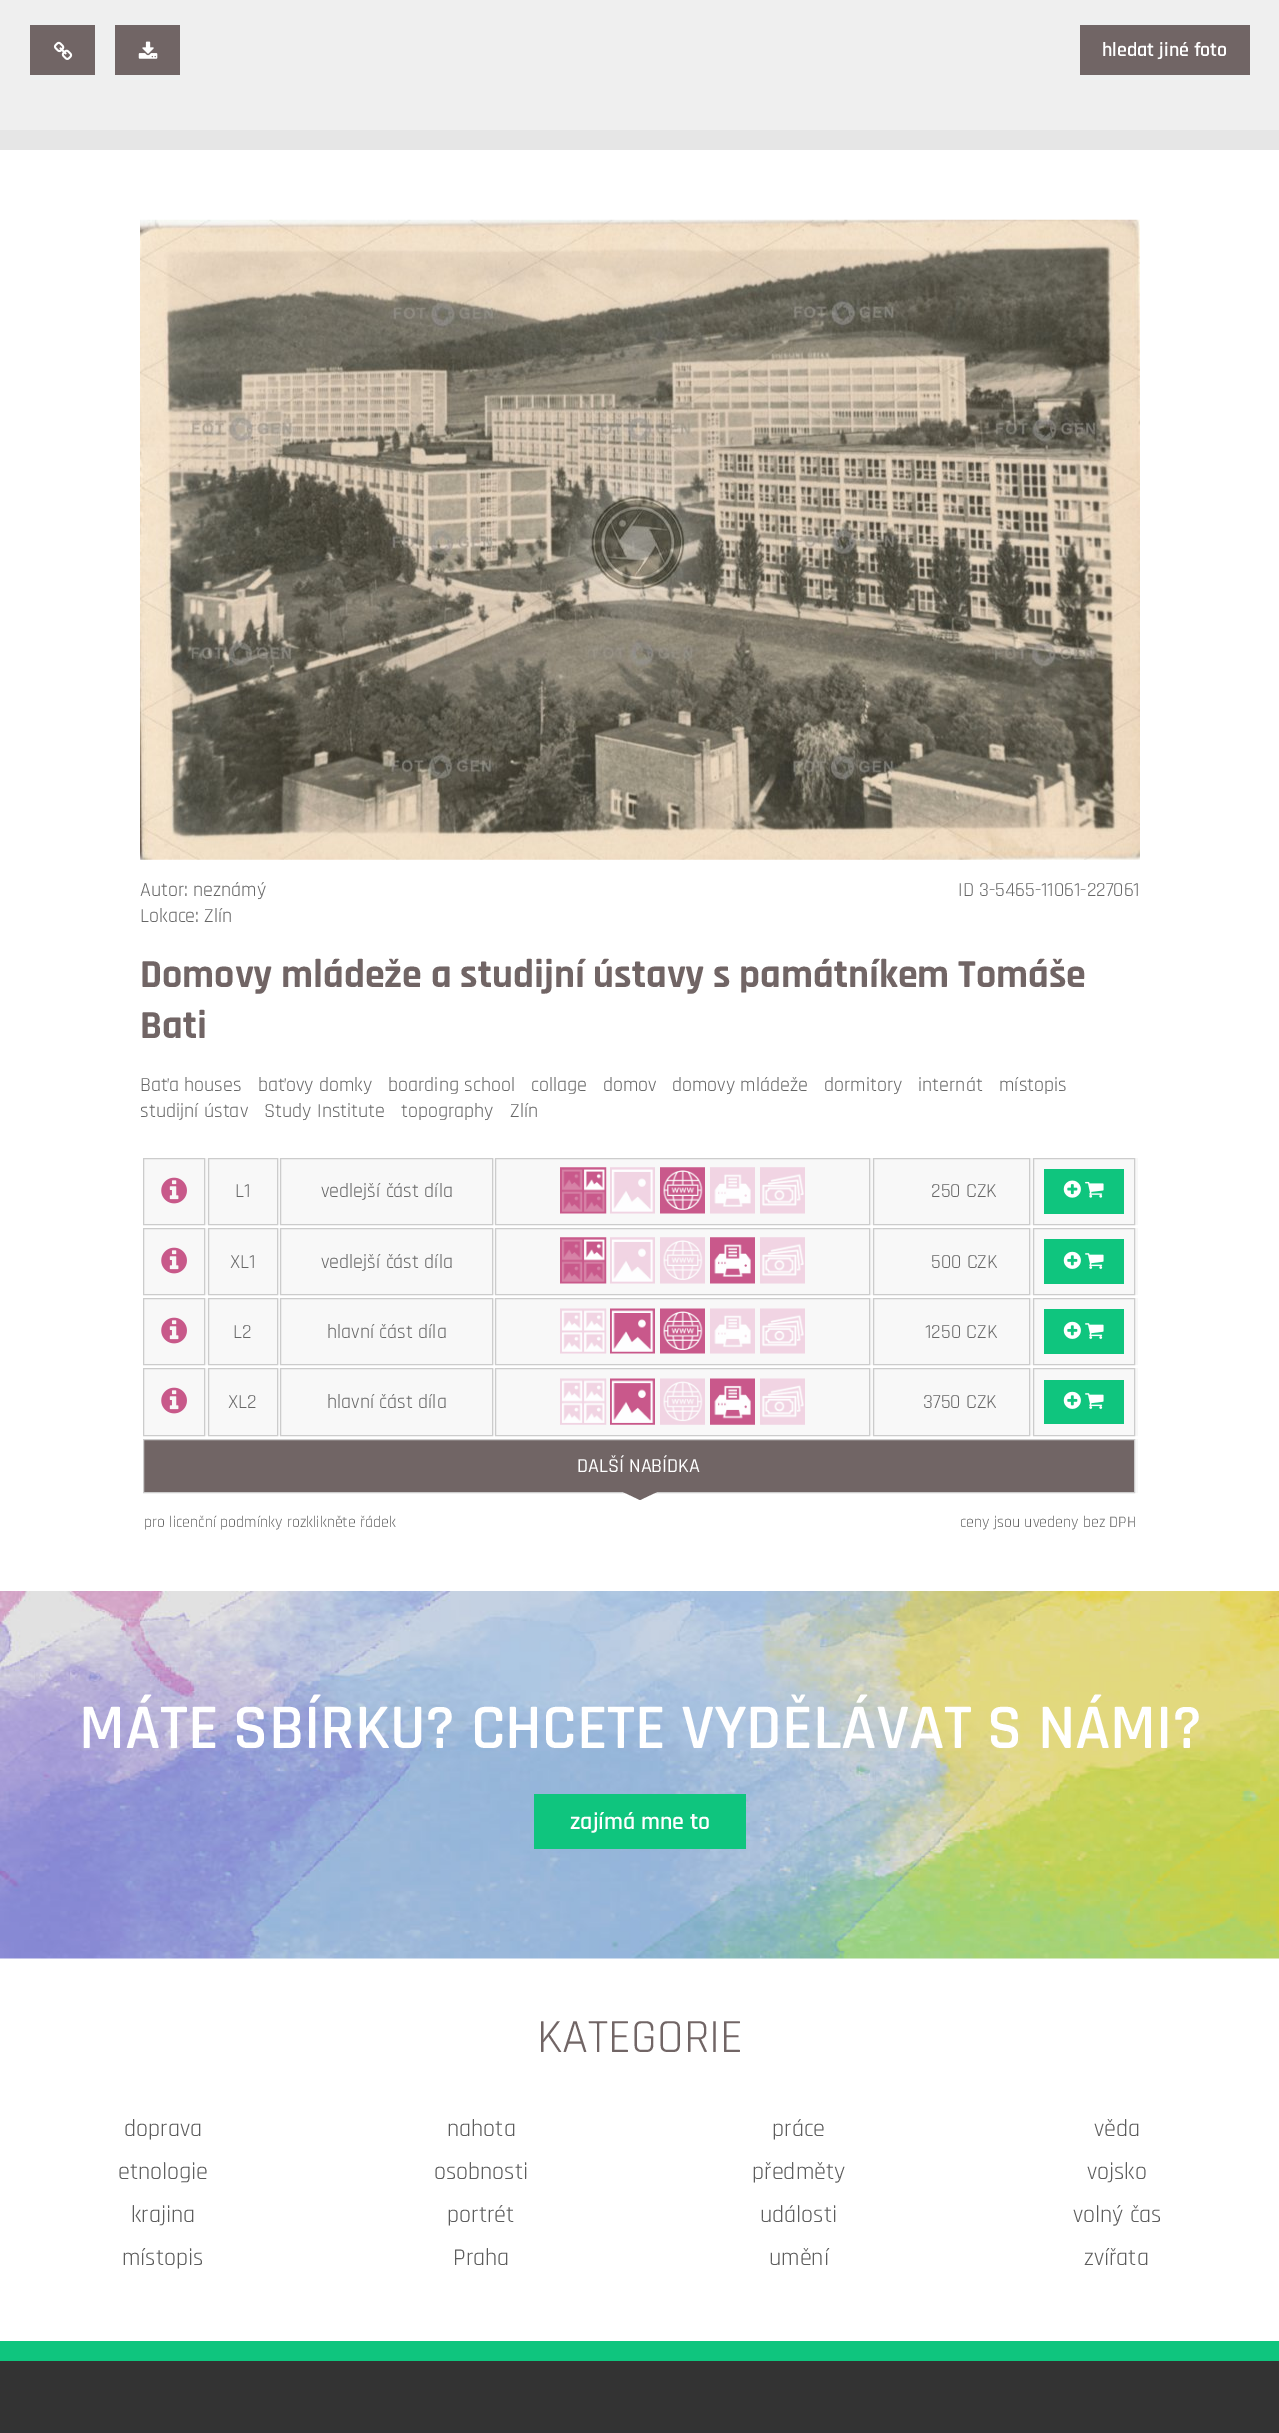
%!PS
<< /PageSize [1279 2433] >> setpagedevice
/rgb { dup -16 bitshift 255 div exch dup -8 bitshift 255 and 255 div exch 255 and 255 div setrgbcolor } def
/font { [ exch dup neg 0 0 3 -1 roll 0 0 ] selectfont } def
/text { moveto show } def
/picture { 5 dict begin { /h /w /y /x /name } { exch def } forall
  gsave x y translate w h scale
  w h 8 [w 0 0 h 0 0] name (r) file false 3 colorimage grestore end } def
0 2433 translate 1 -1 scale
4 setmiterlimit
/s1 { /Rajdhani-SemiBold 20 font 16#FFFFFF rgb } def
/s2 { /Rajdhani-Regular 20 font 16#666666 rgb } def
/s3 { /Rajdhani-Bold 40 font 16#716565 rgb } def
/s4 { /Rajdhani-Medium 20 font 16#FFFFFF rgb } def
/s5 { /Rajdhani-Regular 16 font 16#666666 rgb } def
/s6 { /Rajdhani-SemiBold 64 font 16#FFFFFF rgb } def
/s7 { /Rajdhani-SemiBold 24 font 16#FFFFFF rgb } def
/s8 { /Rajdhani-Regular 48 font 16#716565 rgb } def
/s9 { /Rajdhani-Regular 24 font 16#5C5C5C rgb } def
16#FFFFFF rgb
0 0 1279 2433 rectfill
16#EFEFEF rgb
0 0 1279 130 rectfill
16#716565 rgb
30 25 65 50 rectfill
(pic1.raw) 53 41 20 19 picture
115 25 65 50 rectfill
(pic2.raw) 138 41 20 18 picture
1080 25 170 50 rectfill
s1
(hledat jiné foto) 1102 56 text
16#E6E6E6 rgb
0 130 1279 20 rectfill
(pic3.raw) 140 219 1000 641 picture
s2
(Autor: neznámý) 140 896 text
(Lokace: Zlín) 140 922 text
(ID 3-5465-11061-227061) 958 896 text
s3
(Domovy mládeže a studijní ústavy s památníkem Tomáše) 140 987 text
(Bati) 140 1038 text
s2
(Baťa houses) 140 1091 text
(baťovy domky) 258 1091 text
(boarding school) 388 1091 text
(collage) 531 1091 text
(domov) 603 1091 text
(domovy mládeže) 672 1091 text
(dormitory) 824 1091 text
(internát) 918 1091 text
(místopis) 999 1091 text
(studijní ústav) 140 1117 text
(Study Institute) 264 1117 text
(topography) 401 1117 text
(Zlín) 510 1117 text
16#F8F8F8 rgb
144 1158 994 67 rectfill
16#CCCCCC rgb
143.5 1158.5 61 66 rectstroke
(pic4.raw) 161 1177 26 27 picture
208.5 1158.5 69 66 rectstroke
s2
(L1) 235 1197 text
16#CCCCCC rgb
280.5 1158.5 212 66 rectstroke
s2
(vedlejší část díla) 321 1197 text
16#CCCCCC rgb
495.5 1158.5 374 66 rectstroke
(pic5.raw) 560 1167 47 47 picture
(pic6.raw) 610 1167 45 47 picture
(pic7.raw) 660 1167 45 47 picture
(pic8.raw) 710 1167 45 47 picture
(pic9.raw) 760 1167 45 47 picture
873.5 1158.5 156 66 rectstroke
s2
(250 CZK) 931 1197 text
16#CCCCCC rgb
1033.5 1158.5 101 66 rectstroke
16#0FC57E rgb
1044 1169 80 45 rectfill
(pic10.raw) 1063 1180 18 18 picture
(pic11.raw) 1085 1181 19 17 picture
16#F8F8F8 rgb
144 1228 994 67 rectfill
16#CCCCCC rgb
143.5 1228.5 61 66 rectstroke
(pic4.raw) 161 1247 26 27 picture
208.5 1228.5 69 66 rectstroke
s2
(XL1) 230 1268 text
16#CCCCCC rgb
280.5 1228.5 212 66 rectstroke
s2
(vedlejší část díla) 321 1268 text
16#CCCCCC rgb
495.5 1228.5 374 66 rectstroke
(pic5.raw) 560 1237 47 47 picture
(pic6.raw) 610 1237 45 47 picture
(pic12.raw) 660 1237 45 47 picture
(pic13.raw) 710 1237 45 47 picture
(pic9.raw) 760 1237 45 47 picture
873.5 1228.5 156 66 rectstroke
s2
(500 CZK) 931 1268 text
16#CCCCCC rgb
1033.5 1228.5 101 66 rectstroke
16#0FC57E rgb
1044 1239 80 45 rectfill
(pic14.raw) 1063 1251 18 18 picture
(pic15.raw) 1085 1253 19 16 picture
16#F8F8F8 rgb
144 1298 994 67 rectfill
16#CCCCCC rgb
143.5 1298.5 61 66 rectstroke
(pic4.raw) 161 1317 26 27 picture
208.5 1298.5 69 66 rectstroke
s2
(L2) 233 1338 text
16#CCCCCC rgb
280.5 1298.5 212 66 rectstroke
s2
(hlavní část díla) 327 1338 text
16#CCCCCC rgb
495.5 1298.5 374 66 rectstroke
(pic16.raw) 560 1308 47 46 picture
(pic17.raw) 610 1308 45 46 picture
(pic18.raw) 660 1308 45 46 picture
(pic19.raw) 710 1308 45 46 picture
(pic20.raw) 760 1308 45 46 picture
873.5 1298.5 156 66 rectstroke
s2
(1250 CZK) 925 1338 text
16#CCCCCC rgb
1033.5 1298.5 101 66 rectstroke
16#0FC57E rgb
1044 1309 80 45 rectfill
(pic14.raw) 1063 1321 18 18 picture
(pic15.raw) 1085 1323 19 16 picture
16#F8F8F8 rgb
144 1368 994 68 rectfill
16#CCCCCC rgb
143.5 1368.5 61 67 rectstroke
(pic4.raw) 161 1387 26 27 picture
208.5 1368.5 69 67 rectstroke
s2
(XL2) 228 1408 text
16#CCCCCC rgb
280.5 1368.5 212 67 rectstroke
s2
(hlavní část díla) 327 1408 text
16#CCCCCC rgb
495.5 1368.5 374 67 rectstroke
(pic21.raw) 560 1378 47 47 picture
(pic22.raw) 610 1378 45 47 picture
(pic23.raw) 660 1378 45 47 picture
(pic24.raw) 710 1378 45 47 picture
(pic25.raw) 760 1378 45 47 picture
873.5 1368.5 156 67 rectstroke
s2
(3750 CZK) 923 1408 text
16#CCCCCC rgb
1033.5 1368.5 101 67 rectstroke
16#0FC57E rgb
1044 1380 80 44 rectfill
(pic14.raw) 1063 1391 18 18 picture
(pic15.raw) 1085 1393 19 16 picture
16#F8F8F8 rgb
1135 1439 3 54 rectfill
16#716565 rgb
143.5 1439.5 moveto 1134.5 1439.5 lineto 1134.5 1492.5 lineto 143.5 1492.5 lineto closepath gsave fill grestore
16#CCCCCC rgb
stroke
s4
(DALŠÍ NABÍDKA) 577 1472 text
16#716565 rgb
621 1491 moveto 659 1491 lineto 640 1500 lineto closepath fill
s5
(pro licenční podmínky rozklikněte řádek) 144 1527 text
(ceny jsou uvedeny bez DPH) 960 1527 text
(pic26.raw) 0 1591 1279 368 picture
s6
(MÁTE SBÍRKU? CHCETE VYDĚLÁVAT S NÁMI?) 79 1748 text
16#0FC57E rgb
534 1794 212 55 rectfill
s7
(zajímá mne to) 570 1829 text
s8
(KATEGORIE) 537 2052 text
s9
(doprava) 124 2136 text
(etnologie) 118 2179 text
(krajina) 131 2222 text
(místopis) 122 2265 text
(nahota) 447 2136 text
(osobnosti) 434 2179 text
(portrét) 447 2222 text
(Praha) 453 2265 text
(práce) 772 2136 text
(předměty) 752 2179 text
(události) 760 2222 text
(umění) 769 2265 text
(věda) 1094 2136 text
(vojsko) 1087 2179 text
(volný čas) 1073 2222 text
(zvířata) 1084 2265 text
16#333333 rgb
0 2361 1279 72 rectfill
16#0FC57E rgb
0 2341 1279 20 rectfill
showpage
